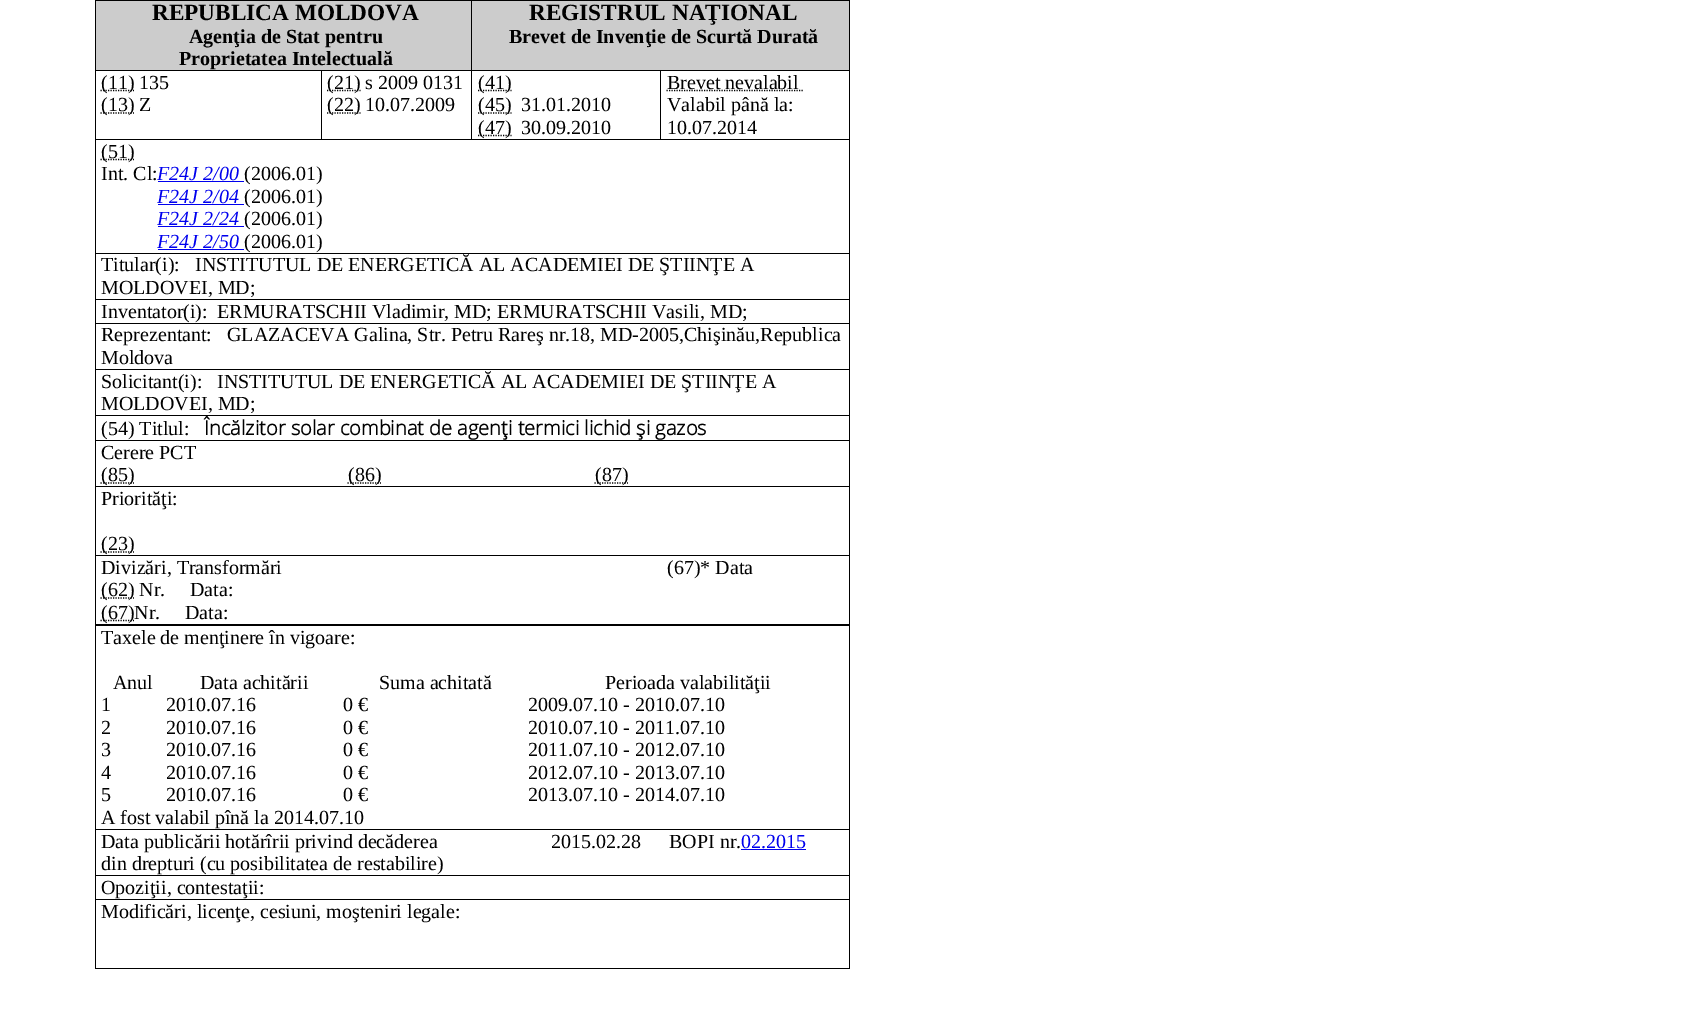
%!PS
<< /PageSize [1694 1014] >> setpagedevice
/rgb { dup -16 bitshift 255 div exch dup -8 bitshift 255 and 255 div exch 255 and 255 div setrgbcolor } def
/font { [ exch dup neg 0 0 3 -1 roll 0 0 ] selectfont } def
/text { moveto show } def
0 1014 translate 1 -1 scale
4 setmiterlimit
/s1 { /LiberationSerif-Bold 23.25 font 16#000000 rgb } def
/s2 { /LiberationSerif-Bold 20 font 16#000000 rgb } def
/s3 { /LiberationSerif-Regular 20 font 16#000000 rgb } def
/s4 { /LiberationSerif-Italic 20 font 16#0000EE rgb } def
/s5 { /OpenSans-Bold 20 font 16#000000 rgb } def
/s6 { /LiberationSerif-Regular 20 font 16#0000EE rgb } def
16#FFFFFF rgb
0 0 1694 1014 rectfill
16#CCCCCC rgb
96 1 753 69 rectfill
16#000000 rgb
471 0 379 1 rectfill
660 70 190 1 rectfill
95 139 755 1 rectfill
660 70 1 70 rectfill
471 70 190 1 rectfill
471 70 1 70 rectfill
321 70 152 1 rectfill
471 0 1 71 rectfill
95 0 378 1 rectfill
321 70 1 70 rectfill
95 70 228 1 rectfill
95 253 755 1 rectfill
95 299 755 1 rectfill
95 323 755 1 rectfill
95 369 755 1 rectfill
95 415 755 1 rectfill
95 440 755 1 rectfill
95 486 755 1 rectfill
95 624 755 1 rectfill
849 555 1 70 rectfill
849 486 1 70 rectfill
95 555 1 70 rectfill
95 555 755 1 rectfill
95 486 1 70 rectfill
95 440 1 48 rectfill
95 415 1 26 rectfill
95 369 1 47 rectfill
95 323 1 47 rectfill
95 299 1 25 rectfill
95 253 1 47 rectfill
95 139 1 115 rectfill
95 70 1 70 rectfill
95 0 1 71 rectfill
s1
(REPUBLICA MOLDOVA) 152 20 text
s2
(Agenţia de Stat pentru) 189 43 text
(Proprietatea Intelectuală) 179 65 text
849 440 1 48 rectfill
849 415 1 26 rectfill
849 369 1 47 rectfill
849 323 1 47 rectfill
849 299 1 25 rectfill
849 253 1 47 rectfill
849 139 1 115 rectfill
849 70 1 70 rectfill
849 0 1 71 rectfill
s1
(REGISTRUL NAŢIONAL) 529 20 text
s2
(Brevet de Invenţie de Scurtă Durată) 509 43 text
1.2 setlinewidth
[1.25 1.25] 0 setdash
100.5 90.5 moveto 134 90.5 lineto stroke
s3
(\(11\) 135) 101 89 text
100.5 113 moveto 134 113 lineto stroke
(\(13\) Z) 101 111 text
327 90.5 moveto 360.5 90.5 lineto stroke
(\(21\) s 2009 0131) 327 89 text
327 113 moveto 360.5 113 lineto stroke
(\(22\) 10.07.2009) 327 111 text
478 90.5 moveto 511.5 90.5 lineto stroke
(\(41\)) 478 89 text
478 113 moveto 511.5 113 lineto stroke
(\(45\)) 478 111 text
(31.01.2010) 521 111 text
478 135.5 moveto 511.5 135.5 lineto stroke
(\(47\)) 478 134 text
(30.09.2010) 521 134 text
666.5 90.5 moveto 803.5 90.5 lineto stroke
(Brevet nevalabil) 667 89 text
(Valabil până la:) 667 111 text
(10.07.2014) 667 134 text
100.5 159.5 moveto 134 159.5 lineto stroke
(\(51\)) 101 158 text
(Int. Cl:) 101 180 text
s4
(F24J 2/00) 157 180 text
158 181 86 1 rectfill
s3
(\(2006.01\)) 244 180 text
s4
(F24J 2/04) 157 203 text
158 204 86 1 rectfill
s3
(\(2006.01\)) 244 203 text
s4
(F24J 2/24) 157 225 text
158 226 86 1 rectfill
s3
(\(2006.01\)) 244 225 text
s4
(F24J 2/50) 157 248 text
158 249 86 1 rectfill
s3
(\(2006.01\)) 244 248 text
(Titular\(i\):) 101 271 text
(INSTITUTUL DE ENERGETICĂ AL ACADEMIEI DE ŞTIINŢE A) 195 271 text
(MOLDOVEI, MD;) 101 294 text
(Inventator\(i\):) 101 318 text
(ERMURATSCHII Vladimir, MD; ERMURATSCHII Vasili, MD;) 217 318 text
(Reprezentant:) 101 341 text
(GLAZACEVA Galina, Str. Petru Rareş nr.18, MD-2005,Chişinău,Republica) 227 341 text
(Moldova) 101 364 text
(Solicitant\(i\):) 101 388 text
(INSTITUTUL DE ENERGETICĂ AL ACADEMIEI DE ŞTIINŢE A) 217 388 text
(MOLDOVEI, MD;) 101 410 text
(\(54\) Titlul:) 101 435 text
s5
(Încălzitor solar combinat de agenţi termici lichid şi gazos) 204 435 text
s3
(Cerere PCT) 101 459 text
100.5 483 moveto 134 483 lineto stroke
(\(85\)) 101 481 text
347.5 483 moveto 381 483 lineto stroke
(\(86\)) 348 481 text
594.5 483 moveto 628 483 lineto stroke
(\(87\)) 595 481 text
(Priorităţi:) 101 505 text
100.5 552 moveto 134 552 lineto stroke
(\(23\)) 101 550 text
(Divizări, Transformări) 101 574 text
100.5 598 moveto 134 598 lineto stroke
(\(62\) Nr.) 101 596 text
(Data:) 190 596 text
100.5 620.5 moveto 134 620.5 lineto stroke
(\(67\)Nr.) 101 619 text
(Data:) 185 619 text
(\(67\)* Data) 667 574 text
95 625 755 1 rectfill
95 829 755 1 rectfill
95 875 755 1 rectfill
95 899 755 1 rectfill
849 899 1 70 rectfill
849 875 1 25 rectfill
849 829 1 47 rectfill
849 625 1 205 rectfill
95 968 755 1 rectfill
95 899 1 70 rectfill
95 875 1 25 rectfill
95 829 1 47 rectfill
95 625 1 205 rectfill
(Taxele de menţinere în vigoare:) 101 644 text
(Anul) 113 689 text
(Data achitării) 200 689 text
(Suma achitată) 379 689 text
(Perioada valabilităţii) 605 689 text
(1) 101 711 text
(2010.07.16) 166 711 text
(0 €) 343 711 text
(2009.07.10 - 2010.07.10) 528 711 text
(2) 101 734 text
(2010.07.16) 166 734 text
(0 €) 343 734 text
(2010.07.10 - 2011.07.10) 528 734 text
(3) 101 756 text
(2010.07.16) 166 756 text
(0 €) 343 756 text
(2011.07.10 - 2012.07.10) 528 756 text
(4) 101 779 text
(2010.07.16) 166 779 text
(0 €) 343 779 text
(2012.07.10 - 2013.07.10) 528 779 text
(5) 101 801 text
(2010.07.16) 166 801 text
(0 €) 343 801 text
(2013.07.10 - 2014.07.10) 528 801 text
(A fost valabil pînă la 2014.07.10) 101 824 text
(Data publicării hotărîrii privind decăderea) 101 848 text
(din drepturi \(cu posibilitatea de restabilire\)) 101 870 text
(2015.02.28) 551 848 text
(BOPI nr.) 669 848 text
s6
(02.2015) 741 848 text
741 849 65 1 rectfill
s3
(Opoziţii, contestaţii:) 101 894 text
(Modificări, licenţe, cesiuni, moşteniri legale:) 101 918 text
showpage
